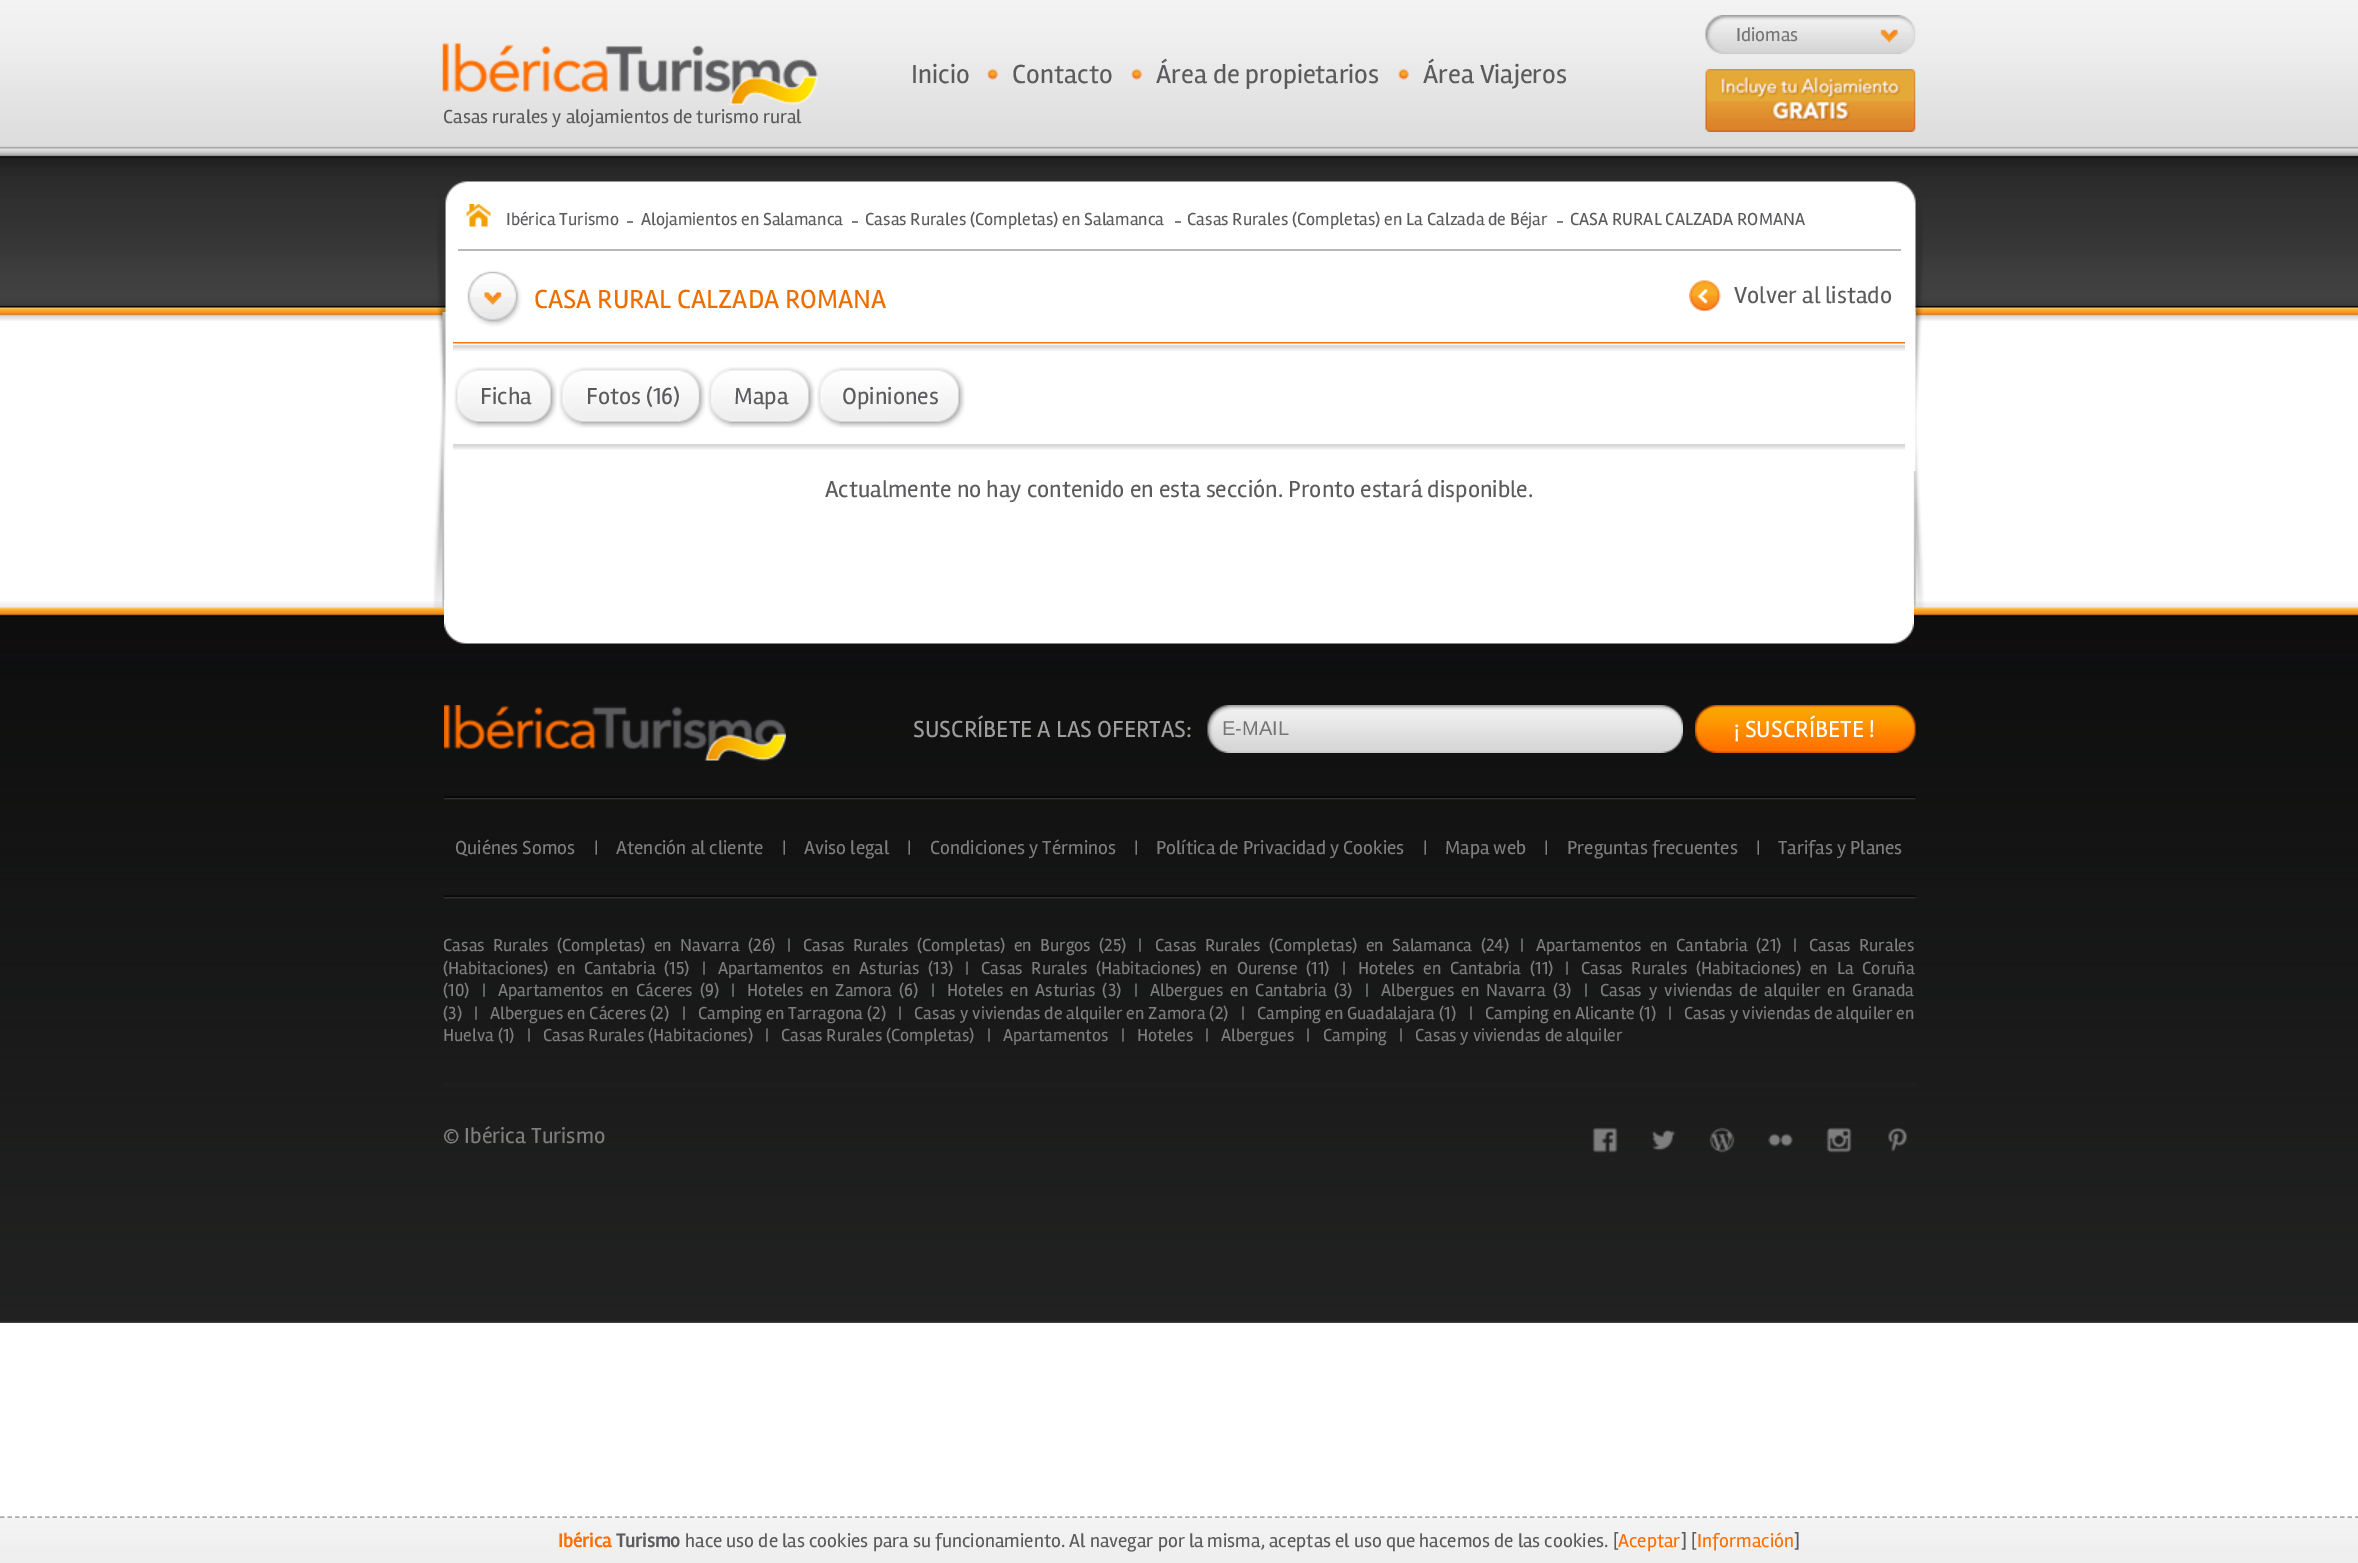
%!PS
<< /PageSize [2358 1563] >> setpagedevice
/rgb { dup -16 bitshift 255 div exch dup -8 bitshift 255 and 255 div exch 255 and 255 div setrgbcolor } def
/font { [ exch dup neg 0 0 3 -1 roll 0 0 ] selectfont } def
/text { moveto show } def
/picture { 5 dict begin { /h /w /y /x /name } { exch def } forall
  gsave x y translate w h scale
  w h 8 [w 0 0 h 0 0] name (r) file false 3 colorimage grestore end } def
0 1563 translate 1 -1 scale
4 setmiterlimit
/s1 { /Rambla-Regular 19.5 font 16#757575 rgb } def
/s2 { /Rambla-Regular 19.5 font 16#5B5A5D rgb } def
/s3 { /Rambla-Regular 27 font 16#5B5A5D rgb } def
/s4 { /Rambla-Regular 18 font 16#5B5A5D rgb } def
/s5 { /Rambla-Regular 27 font 16#EC6E00 rgb } def
/s6 { /Rambla-Regular 24 font 16#5B5A5D rgb } def
/s7 { /Rambla-Regular 24 font 16#9E9E9E rgb } def
/s8 { /LiberationSans-Regular 20 font 16#757575 rgb } def
/s9 { /Rambla-Regular 24 font 16#FFFFFF rgb } def
/s10 { /Rambla-Regular 19.5 font 16#7E7E7E rgb } def
/s11 { /Rambla-Regular 18 font 16#7E7E7E rgb } def
/s12 { /Rambla-Regular 22.5 font 16#7E7E7E rgb } def
/s13 { /Rambla-Bold 19.5 font 16#FF6E00 rgb } def
/s14 { /Rambla-Bold 19.5 font 16#5B5A5D rgb } def
/s15 { /Rambla-Regular 19.5 font 16#FF6E00 rgb } def
16#FFFFFF rgb
0 0 2358 1563 rectfill
(pic1.raw) 0 0 2358 321 picture
(pic2.raw) 1705 15 211 39 picture
s1
(Idiomas) 1736 41 text
(pic3.raw) 442 43 376 62 picture
s2
(Casas rurales y alojamientos de turismo rural) 443 123 text
(pic4.raw) 987 69 11 11 picture
s3
(Inicio) 911 83 text
(pic5.raw) 1131 69 11 11 picture
(Contacto) 1012 83 text
(pic4.raw) 1398 69 11 11 picture
(Área de propietarios) 1156 83 text
(Área Viajeros) 1423 83 text
(pic6.raw) 1705 69 211 63 picture
(pic7.raw) 433 312 1491 296 picture
(pic8.raw) 437 181 1486 290 picture
(pic9.raw) 466 204 25 23 picture
16#B8B8B8 rgb
458 249 1443 2 rectfill
s4
(Ibérica Turismo) 506 225 text
16#808080 rgb
627 221 6 2 rectfill
s4
(Alojamientos en Salamanca) 641 225 text
16#808080 rgb
852 221 6 2 rectfill
s4
(Casas Rurales \(Completas\) en Salamanca) 865 225 text
16#808080 rgb
1175 221 6 2 rectfill
s4
(Casas Rurales \(Completas\) en La Calzada de Béjar) 1187 225 text
16#808080 rgb
1557 221 6 2 rectfill
s4
(CASA RURAL CALZADA ROMANA) 1570 225 text
(pic10.raw) 467 271 55 56 picture
s5
(CASA RURAL CALZADA ROMANA) 534 308 text
(pic11.raw) 1689 280 32 32 picture
s6
(Volver al listado) 1734 303 text
(pic12.raw) 453 342 1452 9 picture
(pic13.raw) 454 367 23 61 picture
(pic14.raw) 477 367 54 61 picture
(Ficha) 480 404 text
(pic15.raw) 531 367 26 61 picture
(pic13.raw) 559 367 23 61 picture
(pic16.raw) 582 367 98 61 picture
(Fotos \(16\)) 586 404 text
(pic17.raw) 679 367 27 61 picture
(pic18.raw) 707 367 24 61 picture
(pic19.raw) 730 367 59 61 picture
(Mapa) 734 404 text
(pic20.raw) 789 367 26 61 picture
(pic21.raw) 817 367 23 61 picture
(pic22.raw) 840 367 99 61 picture
(Opiniones) 842 404 text
(pic20.raw) 939 367 26 61 picture
(pic23.raw) 453 444 1452 6 picture
(Actualmente no hay contenido en esta sección. Pronto estará disponible.) 825 497 text
(pic25.raw) 0 601 2358 722 picture
(pic24.raw) 444 600 1470 44 picture
(pic26.raw) 444 705 342 56 picture
s7
(SUSCRÍBETE A LAS OFERTAS:) 913 737 text
(pic27.raw) 1207 705 476 48 picture
s8
(E-MAIL) 1222 735 text
(pic28.raw) 1695 705 221 48 picture
s9
(¡ SUSCRÍBETE !) 1734 737 text
(pic29.raw) 444 796 1472 4 picture
s10
(Quiénes Somos) 455 854 text
(|) 594 854 text
(Atención al cliente) 616 854 text
(|) 782 854 text
(Aviso legal) 804 854 text
(|) 907 854 text
(Condiciones y Términos) 930 854 text
(|) 1134 854 text
(Política de Privacidad y Cookies) 1156 854 text
(|) 1423 854 text
(Mapa web) 1445 854 text
(|) 1544 854 text
(Preguntas frecuentes) 1567 854 text
(|) 1756 854 text
(Tarifas y Planes) 1778 854 text
(pic30.raw) 444 895 1472 4 picture
/Rambla-Regular 18 font
443 951 moveto 4.5 0 32 (Casas Rurales \(Completas\) en Navarra \(26\)) widthshow
(|) 787 951 text
803 951 moveto 4.5 0 32 (Casas Rurales \(Completas\) en Burgos \(25\)) widthshow
(|) 1138 951 text
1155 951 moveto 4.5 0 32 (Casas Rurales \(Completas\) en Salamanca \(24\)) widthshow
(|) 1520 951 text
1536 951 moveto 4.5 0 32 (Apartamentos en Cantabria \(21\)) widthshow
(|) 1793 951 text
1809 951 moveto 4.5 0 32 (Casas Rurales) widthshow
443 974 moveto 5 0 32 (\(Habitaciones\) en Cantabria \(15\)) widthshow
(|) 702 974 text
718 974 moveto 5 0 32 (Apartamentos en Asturias \(13\)) widthshow
(|) 965 974 text
981 974 moveto 5 0 32 (Casas Rurales \(Habitaciones\) en Ourense \(11\)) widthshow
(|) 1342 974 text
1358 974 moveto 5 0 32 (Hoteles en Cantabria \(11\)) widthshow
(|) 1565 974 text
1581 974 moveto 5 0 32 (Casas Rurales \(Habitaciones\) en La Coruña) widthshow
(\(10\)) 443 996 text
(|) 482 996 text
498 996 moveto 3.25 0 32 (Apartamentos en Cáceres \(9\)) widthshow
(|) 731 996 text
747 996 moveto 3.25 0 32 (Hoteles en Zamora \(6\)) widthshow
(|) 931 996 text
947 996 moveto 3.25 0 32 (Hoteles en Asturias \(3\)) widthshow
(|) 1134 996 text
1150 996 moveto 3.25 0 32 (Albergues en Cantabria \(3\)) widthshow
(|) 1365 996 text
1381 996 moveto 3.25 0 32 (Albergues en Navarra \(3\)) widthshow
(|) 1584 996 text
1600 996 moveto 3.25 0 32 (Casas y viviendas de alquiler en Granada) widthshow
(\(3\)) 443 1019 text
(|) 474 1019 text
490 1019 moveto 0.25 0 32 (Albergues en Cáceres \(2\)) widthshow
(|) 682 1019 text
698 1019 moveto 0.25 0 32 (Camping en Tarragona \(2\)) widthshow
(|) 898 1019 text
914 1019 moveto 0.25 0 32 (Casas y viviendas de alquiler en Zamora \(2\)) widthshow
(|) 1241 1019 text
1257 1019 moveto 0.25 0 32 (Camping en Guadalajara \(1\)) widthshow
(|) 1469 1019 text
1485 1019 moveto 0.25 0 32 (Camping en Alicante \(1\)) widthshow
(|) 1668 1019 text
1684 1019 moveto 0.25 0 32 (Casas y viviendas de alquiler en) widthshow
(Huelva \(1\)) 443 1041 text
(|) 527 1041 text
(Casas Rurales \(Habitaciones\)) 543 1041 text
(|) 765 1041 text
(Casas Rurales \(Completas\)) 781 1041 text
(|) 987 1041 text
(Apartamentos) 1003 1041 text
(|) 1121 1041 text
(Hoteles) 1137 1041 text
(|) 1205 1041 text
(Albergues) 1221 1041 text
(|) 1306 1041 text
(Camping) 1323 1041 text
(|) 1399 1041 text
(Casas y viviendas de alquiler) 1415 1041 text
16#1E1E1E rgb
444 1083 1472 3 rectfill
s12
(© Ibérica Turismo) 443 1143 text
(pic31.raw) 1592 1127 26 26 picture
(pic32.raw) 1652 1129 24 22 picture
(pic33.raw) 1709 1127 26 26 picture
(pic34.raw) 1768 1133 25 14 picture
(pic35.raw) 1826 1127 26 26 picture
(pic36.raw) 1888 1127 19 25 picture
(pic37.raw) 0 1518 2358 45 picture
16#ACACAC rgb
1.5 setlinewidth
[4.5 3] 0 setdash
0 1517 moveto 2358 1517 lineto stroke
s13
(Ibérica) 558 1547 text
s14
(Turismo) 616 1547 text
s2
(hace uso de las cookies para su funcionamiento. Al navegar por la misma, aceptas el uso que hacemos de las cookies. [) 685 1547 text
s15
(Aceptar) 1618 1547 text
s2
(] [) 1681 1547 text
s15
(Información) 1697 1547 text
s2
(]) 1794 1547 text
showpage
